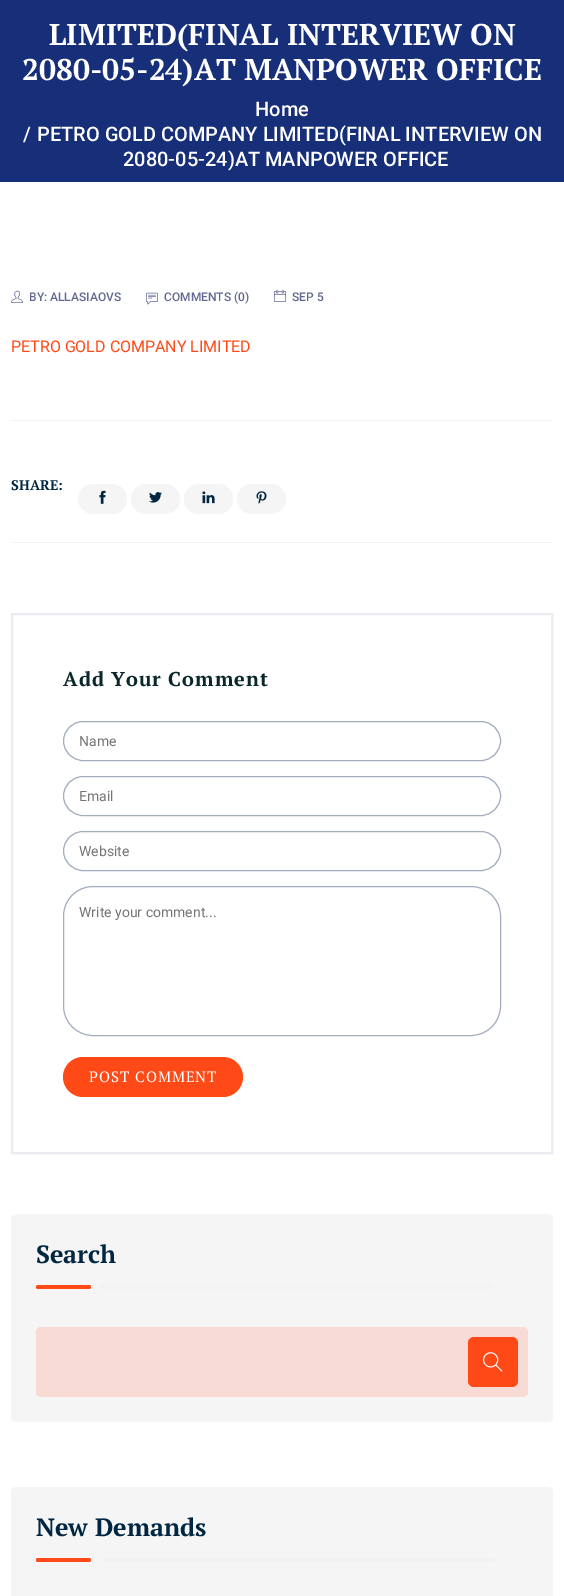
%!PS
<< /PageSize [564 1596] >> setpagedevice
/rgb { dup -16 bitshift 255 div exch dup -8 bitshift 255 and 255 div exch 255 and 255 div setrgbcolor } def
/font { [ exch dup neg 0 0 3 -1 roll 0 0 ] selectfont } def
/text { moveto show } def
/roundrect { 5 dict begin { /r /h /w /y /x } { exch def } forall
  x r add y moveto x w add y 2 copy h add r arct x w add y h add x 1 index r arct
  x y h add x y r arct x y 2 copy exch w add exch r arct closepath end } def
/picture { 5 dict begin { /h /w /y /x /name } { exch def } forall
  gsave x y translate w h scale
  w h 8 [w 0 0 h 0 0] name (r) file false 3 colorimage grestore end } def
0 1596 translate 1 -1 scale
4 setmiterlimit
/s1 { /PTSerif-Bold 30 font 16#FFFFFF rgb } def
/s2 { /Roboto-Medium 20 font 16#FFFFFF rgb } def
/s3 { /Roboto-Medium 12 font 16#636893 rgb } def
/s4 { /Roboto-Regular 16 font 16#FF4A17 rgb } def
/s5 { /PTSerif-Bold 14 font 16#002642 rgb } def
/s6 { /Roboto-Regular 14 font 16#757575 rgb } def
/s7 { /PTSerif-Bold 25 font 16#002642 rgb } def
16#FFFFFF rgb
0 0 564 1596 rectfill
16#172E79 rgb
0 0 564 182 rectfill
s1
(LIMITED\(FINAL INTERVIEW ON) 49 45 text
(2080-05-24\)AT MANPOWER OFFICE) 22 80 text
s2
(Home) 255 116 text
(/) 23 141 text
(PETRO GOLD COMPANY LIMITED\(FINAL INTERVIEW ON) 37 141 text
(2080-05-24\)AT MANPOWER OFFICE) 123 166 text
(pic1.raw) 11 290 12 13 picture
s3
(BY: ALLASIAOVS) 29 301 text
(pic2.raw) 146 292 12 13 picture
(COMMENTS \(0\)) 164 301 text
(pic3.raw) 274 290 12 12 picture
(SEP 5) 292 301 text
s4
(PETRO GOLD COMPANY LIMITED) 11 352 text
16#F4F4F4 rgb
11 420 542 1 rectfill
11 542 542 1 rectfill
s5
(SHARE:) 11 490 text
16#F5F5F5 rgb
78 484 49 30 15 roundrect fill
(pic4.raw) 99 490 7 14 picture
131 484 49 30 15 roundrect fill
(pic5.raw) 149 492 13 11 picture
184 484 49 30 15 roundrect fill
(pic6.raw) 202 491 13 13 picture
237 484 49 30 15 roundrect fill
(pic7.raw) 256 491 11 13 picture
16#EBEBF1 rgb
2 setlinewidth
12 614 540 539 rectstroke
/PTSerif-Bold 20 font
16#0A272C rgb
63 686 moveto 1 0 (Add Your Comment) ashow
16#A4ADBE rgb
1 setlinewidth
63.5 721.5 437 39 19.5 roundrect stroke
s6
(Name) 79 746 text
16#A4ADBE rgb
63.5 776.5 437 39 19.5 roundrect stroke
s6
(Email) 79 801 text
16#A4ADBE rgb
63.5 831.5 437 39 19.5 roundrect stroke
s6
(Website) 79 856 text
16#A4ADBE rgb
63.5 886.5 437 149 29.5 roundrect stroke
s6
(Write your comment...) 79 917 text
16#FF4A17 rgb
63 1057 180 40 20 roundrect fill
/PTSerif-Regular 15 font
16#FFFFFF rgb
89 1082 moveto 1 0 (POST COMMENT) ashow
16#F5F5F5 rgb
11 1214 542 208 5 roundrect fill
s7
(Search) 36 1263 text
16#FF4A17 rgb
36 1285 55 4 2 roundrect fill
16#F2F2F2 rgb
101 1285 393 4 2 roundrect fill
16#F7DBD4 rgb
36 1327 492 70 5 roundrect fill
16#FF4A17 rgb
468 1337 50 50 6 roundrect fill
(pic8.raw) 483 1352 20 20 picture
16#F5F5F5 rgb
11 1487 542 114 5 roundrect fill
s7
(New Demands) 36 1536 text
16#FF4A17 rgb
36 1558 55 4 2 roundrect fill
16#F2F2F2 rgb
101 1558 393 4 2 roundrect fill
showpage
